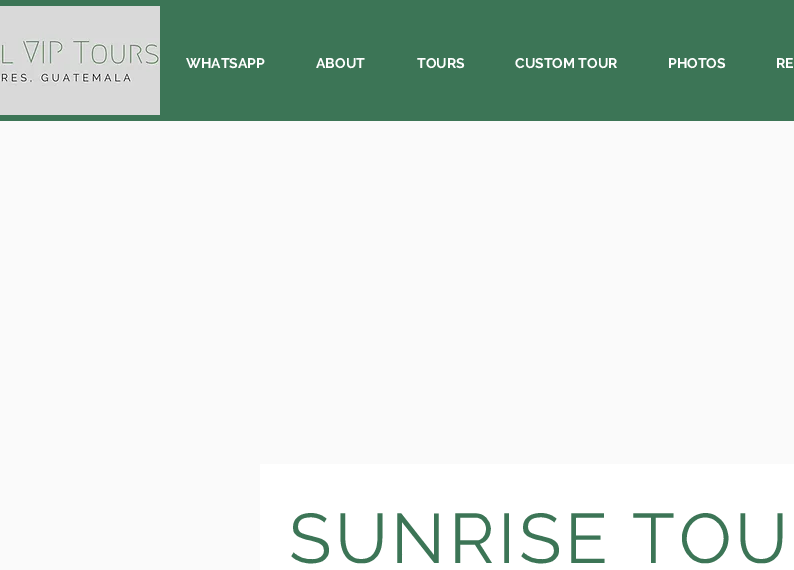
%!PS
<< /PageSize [794 570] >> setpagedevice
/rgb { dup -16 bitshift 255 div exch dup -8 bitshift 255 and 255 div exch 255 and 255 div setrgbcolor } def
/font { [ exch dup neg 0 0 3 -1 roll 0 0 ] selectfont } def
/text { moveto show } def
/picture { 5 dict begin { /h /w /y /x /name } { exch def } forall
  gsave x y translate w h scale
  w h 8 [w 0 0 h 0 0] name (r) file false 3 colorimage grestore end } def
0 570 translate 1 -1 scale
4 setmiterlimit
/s1 { /Raleway-Bold 14 font 16#FFFFFF rgb } def
16#3C7556 rgb
0 0 794 570 rectfill
(pic1.raw) 0 6 160 109 picture
s1
(WHATSAPP) 186 68 text
(ABOUT) 316 68 text
(TOURS) 417 68 text
(CUSTOM TOUR) 515 68 text
(PHOTOS) 668 68 text
(RE) 776 68 text
16#FAFAFA rgb
0 121 794 449 rectfill
16#FFFFFF rgb
260 464 534 106 rectfill
/Raleway-Regular 70 font
16#3C7556 rgb
289 563 moveto 3.5 0 (SUNRISE TOU) ashow
showpage
